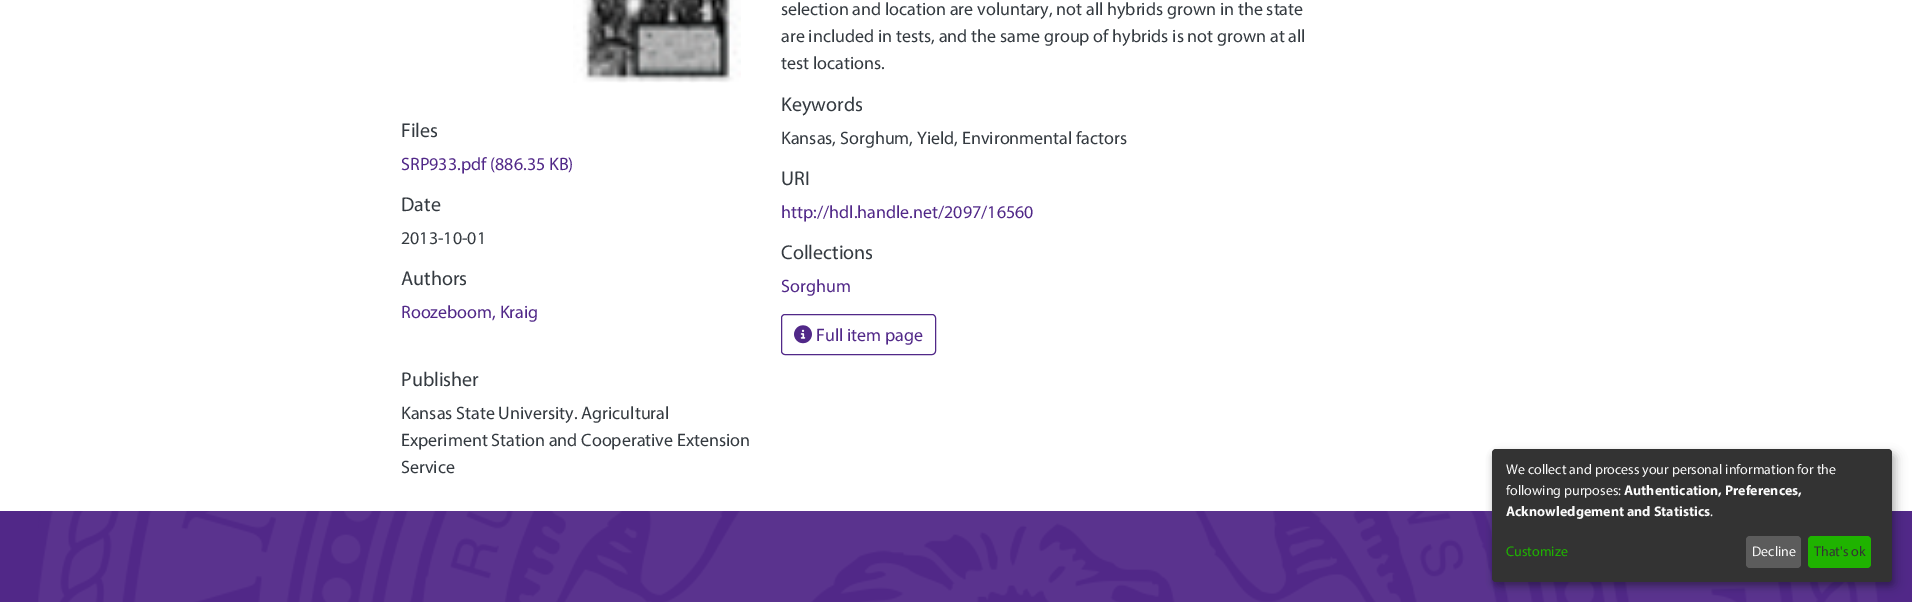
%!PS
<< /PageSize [1912 602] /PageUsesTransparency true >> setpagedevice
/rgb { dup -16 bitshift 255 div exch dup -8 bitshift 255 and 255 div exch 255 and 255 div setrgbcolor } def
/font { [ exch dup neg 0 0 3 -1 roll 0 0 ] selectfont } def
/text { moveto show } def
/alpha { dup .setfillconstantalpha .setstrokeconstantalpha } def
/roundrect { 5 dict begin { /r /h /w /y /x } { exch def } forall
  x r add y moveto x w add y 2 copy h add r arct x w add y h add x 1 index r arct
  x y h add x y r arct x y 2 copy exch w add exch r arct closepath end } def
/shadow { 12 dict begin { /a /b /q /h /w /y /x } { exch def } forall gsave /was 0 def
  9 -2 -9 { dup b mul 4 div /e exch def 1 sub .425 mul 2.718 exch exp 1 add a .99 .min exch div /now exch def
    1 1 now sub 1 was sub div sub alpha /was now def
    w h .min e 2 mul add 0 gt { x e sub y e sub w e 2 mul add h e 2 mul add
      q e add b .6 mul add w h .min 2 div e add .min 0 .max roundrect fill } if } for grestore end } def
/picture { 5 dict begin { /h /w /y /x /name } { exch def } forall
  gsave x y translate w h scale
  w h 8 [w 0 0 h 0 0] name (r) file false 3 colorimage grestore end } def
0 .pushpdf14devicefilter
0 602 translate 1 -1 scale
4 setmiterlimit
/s1 { /Myriad-Regular 20 font 16#343A40 rgb } def
/s2 { /Myriad-Regular 18 font 16#512888 rgb } def
/s3 { /Myriad-Regular 18 font 16#343A40 rgb } def
/s4 { /Myriad-Regular 14 font 16#FAFAFA rgb } def
/s5 { /Myriad-Bold 14 font 16#FAFAFA rgb } def
/s6 { /Myriad-Regular 14 font 16#1FB300 rgb } def
/s7 { /Myriad-Regular 14 font 16#333333 rgb } def
16#FFFFFF rgb
0 0 1912 602 rectfill
(pic1.raw) 573 0 168 83 picture
s1
(Files) 401 137 text
s2
(SRP933.pdf \(886.35 KB\)) 401 170 text
s1
(Date) 401 211 text
s3
(2013-10-01) 401 244 text
s1
(Authors) 401 285 text
s2
(Roozeboom, Kraig) 401 318 text
s1
(Publisher) 401 386 text
s3
(Kansas State University. Agricultural) 401 419 text
(Experiment Station and Cooperative Extension) 401 446 text
(Service) 401 473 text
(selection and location are voluntary, not all hybrids grown in the state) 781 15 text
(are included in tests, and the same group of hybrids is not grown at all) 781 42 text
(test locations.) 781 69 text
s1
(Keywords) 781 111 text
s3
(Kansas, Sorghum, Yield, Environmental factors) 781 144 text
s1
(URI) 781 185 text
s2
(http://hdl.handle.net/2097/16560) 781 218 text
s1
(Collections) 781 259 text
s2
(Sorghum) 781 292 text
781.5 314.5 154 40 3.5 roundrect stroke
(pic2.raw) 794 325 18 19 picture
(Full item page) 816 341 text
0 511 1912 91 rectfill
(pic3.raw) 38 511 1840 91 picture
16#000000 rgb
1497 454 400 133 4 5 0.19 shadow
1492 453 400 133 4 3 0.2 shadow
16#333333 rgb
1492 449 400 133 4 roundrect fill
s4
(We collect and process your personal information for the) 1506 474 text
(following purposes:) 1506 495 text
s5
(Authentication, Preferences,) 1624 495 text
(Acknowledgement and Statistics) 1506 516 text
s4
(.) 1710 516 text
s6
(Customize) 1506 556 text
16#5C5C5C rgb
1746 536 55 32 4 roundrect fill
s4
(Decline) 1752 556 text
16#1FB300 rgb
1808 536 63 32 4 roundrect fill
s7
(That's ok) 1814 556 text
.poppdf14devicefilter showpage
